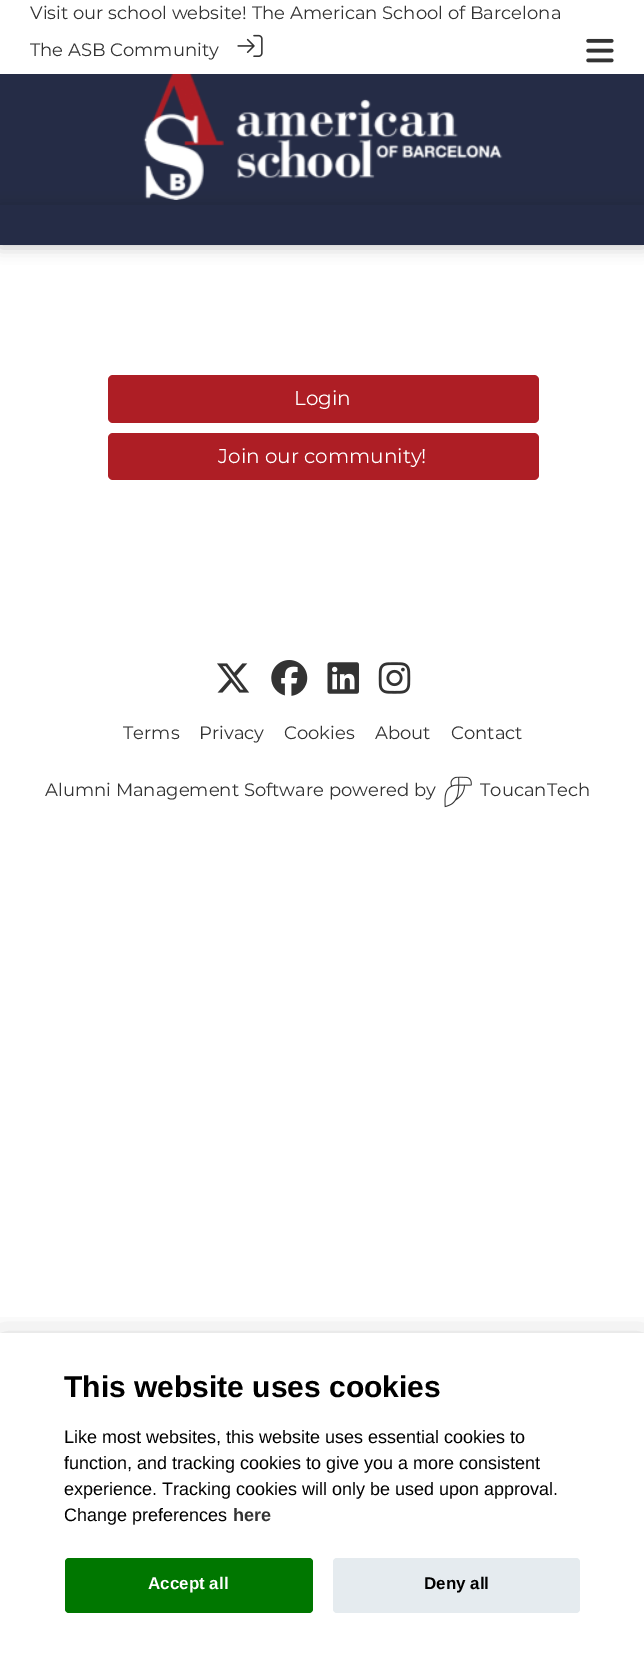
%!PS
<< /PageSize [644 1660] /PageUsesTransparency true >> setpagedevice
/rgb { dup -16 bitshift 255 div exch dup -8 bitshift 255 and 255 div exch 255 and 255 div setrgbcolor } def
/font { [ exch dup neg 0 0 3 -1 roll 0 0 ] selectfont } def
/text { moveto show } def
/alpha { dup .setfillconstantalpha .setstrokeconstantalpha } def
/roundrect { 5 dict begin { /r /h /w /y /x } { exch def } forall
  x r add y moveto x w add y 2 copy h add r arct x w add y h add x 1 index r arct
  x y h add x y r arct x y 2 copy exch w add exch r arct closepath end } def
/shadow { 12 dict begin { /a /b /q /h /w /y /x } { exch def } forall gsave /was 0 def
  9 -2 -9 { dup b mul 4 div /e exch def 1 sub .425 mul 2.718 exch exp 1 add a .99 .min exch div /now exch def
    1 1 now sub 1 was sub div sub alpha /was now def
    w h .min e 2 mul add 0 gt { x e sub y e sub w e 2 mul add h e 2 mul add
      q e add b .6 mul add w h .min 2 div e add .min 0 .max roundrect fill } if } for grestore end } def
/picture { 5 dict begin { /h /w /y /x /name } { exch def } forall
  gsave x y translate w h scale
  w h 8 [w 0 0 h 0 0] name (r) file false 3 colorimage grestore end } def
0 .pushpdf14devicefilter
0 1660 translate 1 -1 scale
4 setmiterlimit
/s1 { /Montserrat-Regular 18 font 16#333333 rgb } def
/s2 { /Montserrat-Regular 20 font 16#FFFFFF rgb } def
/s3 { /LiberationSans-Bold 30 font 16#000000 rgb } def
/s4 { /LiberationSans-Regular 18 font 16#000000 rgb } def
/s5 { /LiberationSans-Bold 18 font 16#333333 rgb } def
/s6 { /LiberationSans-Bold 17 font 16#FFFFFF rgb } def
/s7 { /LiberationSans-Bold 17 font 16#000000 rgb } def
16#FFFFFF rgb
0 0 644 1660 rectfill
s1
(Visit our school website! The American School of Barcelona) 30 19 text
(The ASB Community) 30 56 text
(pic1.raw) 237 34 26 23 picture
(pic2.raw) 586 38 28 25 picture
16#252C46 rgb
0 74 644 131 rectfill
(pic3.raw) 143 74 360 126 picture
16#000000 rgb
0 208 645 40 0 7.5 0.2 shadow
16#252C46 rgb
0 205 644 40 rectfill
16#AE1E25 rgb
108 375 431 48 5 roundrect fill
s2
(Login) 294 405 text
16#AE1E25 rgb
108 433 431 47 5 roundrect fill
s2
(Join our community!) 218 463 text
(pic4.raw) 217 663 33 30 picture
(pic5.raw) 271 660 37 36 picture
(pic6.raw) 327 662 32 32 picture
(pic7.raw) 378 662 33 32 picture
s1
(Terms) 123 739 text
(Privacy) 199 739 text
(Cookies) 284 739 text
(About) 375 739 text
(Contact) 451 739 text
(Alumni Management Software powered by) 45 796 text
(pic8.raw) 444 776 28 32 picture
(ToucanTech) 480 796 text
gsave
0 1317 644 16 rectclip
16#020203 rgb
0 1345 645 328 0 19 0.28 shadow
grestore
s3
(This website uses cookies) 64 1397 text
s4
(Like most websites, this website uses essential cookies to) 64 1443 text
(function, and tracking cookies to give you a more consistent) 64 1469 text
(experience. Tracking cookies will only be used upon approval.) 64 1495 text
(Change preferences) 64 1521 text
s5
(here) 233 1521 text
16#007700 rgb
65 1558 248 55 4 roundrect fill
s6
(Accept all) 148 1589 text
16#E5EBEF rgb
333 1558 247 55 4 roundrect fill
s7
(Deny all) 424 1589 text
.poppdf14devicefilter showpage
